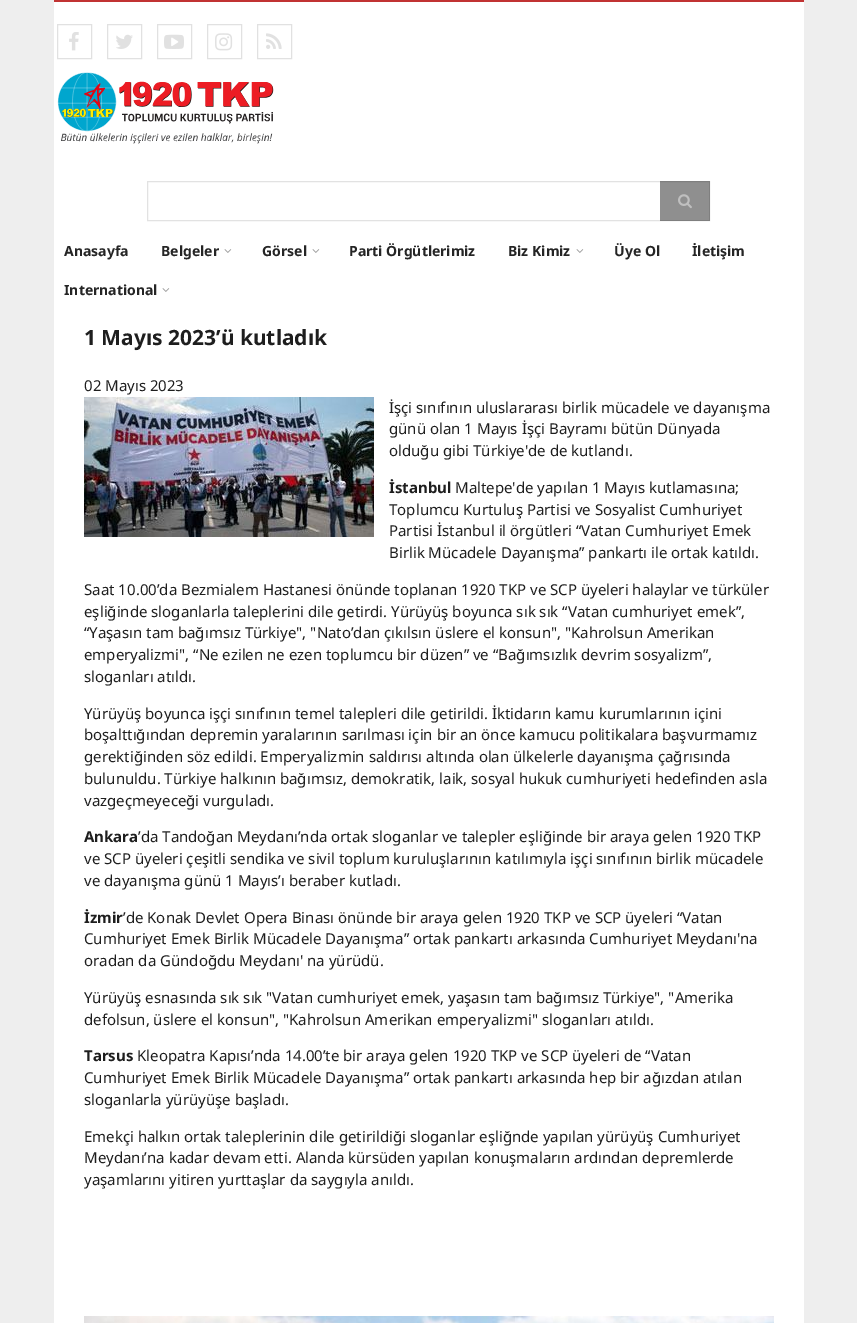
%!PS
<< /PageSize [857 1323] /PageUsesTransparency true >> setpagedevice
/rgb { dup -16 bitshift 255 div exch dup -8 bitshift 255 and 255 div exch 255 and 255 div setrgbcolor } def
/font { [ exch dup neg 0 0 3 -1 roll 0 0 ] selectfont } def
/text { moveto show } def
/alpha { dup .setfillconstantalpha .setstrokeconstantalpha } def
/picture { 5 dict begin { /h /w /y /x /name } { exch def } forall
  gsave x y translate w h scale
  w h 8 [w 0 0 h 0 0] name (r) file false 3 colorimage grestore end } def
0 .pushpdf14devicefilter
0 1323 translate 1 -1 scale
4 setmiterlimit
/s1 { /NotoSans-Bold 14 font 16#252525 rgb } def
/s2 { /NotoSans-Bold 21 font 16#1E1E1E rgb } def
/s3 { /NotoSans-Regular 15 font 16#1E1E1E rgb } def
/s4 { /NotoSans-Bold 15 font 16#1E1E1E rgb } def
16#EEEEEE rgb
0 0 857 1323 rectfill
16#FFFFFF rgb
54 2 750 308 rectfill
16#C13333 rgb
54 0 750 2 rectfill
16#E1E1E1 rgb
57.5 24.5 34 34 rectstroke
(pic1.raw) 69 32 10 19 picture
107.5 24.5 34 34 rectstroke
(pic2.raw) 116 34 17 15 picture
157.5 24.5 34 34 rectstroke
(pic3.raw) 164 34 20 15 picture
207.5 24.5 34 34 rectstroke
(pic4.raw) 215 33 18 18 picture
257.5 24.5 34 34 rectstroke
(pic5.raw) 266 33 16 16 picture
(pic6.raw) 57 72 217 72 picture
16#E2E2E2 rgb
147.5 181.5 562 39 rectstroke
0.25 alpha
16#000000 rgb
660 181 50 40 rectfill
1 alpha
(pic7.raw) 678 194 14 15 picture
0.25 alpha
660 181 50 40 rectfill
1 alpha
s1
(Anasayfa) 64 256 text
(Belgeler) 161 256 text
(pic8.raw) 224 249 8 4 picture
(Görsel) 262 256 text
(pic8.raw) 312 249 8 4 picture
(Parti Örgütlerimiz) 349 256 text
(Biz Kimiz) 508 256 text
(pic8.raw) 576 249 8 4 picture
(Üye Ol) 614 256 text
(İletişim) 692 256 text
(International) 64 295 text
(pic8.raw) 162 288 8 4 picture
16#FFFFFF rgb
54 310 750 1013 rectfill
s2
(1 Mayıs 2023’ü kutladık) 84 345 text
s3
(02 Mayıs 2023) 84 391 text
(pic9.raw) 84 397 290 140 picture
(İşçi sınıfının uluslararası birlik mücadele ve dayanışma) 389 413 text
(günü olan 1 Mayıs İşçi Bayramı bütün Dünyada) 389 434 text
(olduğu gibi Türkiye'de de kutlandı.) 389 456 text
s4
(İstanbul) 389 493 text
s3
(Maltepe'de yapılan 1 Mayıs kutlamasına;) 455 493 text
(Toplumcu Kurtuluş Partisi ve Sosyalist Cumhuriyet) 389 515 text
(Partisi İstanbul il örgütleri “Vatan Cumhuriyet Emek) 389 536 text
(Birlik Mücadele Dayanışma” pankartı ile ortak katıldı.) 389 558 text
(Saat 10.00’da Bezmialem Hastanesi önünde toplanan 1920 TKP ve SCP üyeleri halaylar ve türküler) 84 595 text
(eşliğinde sloganlarla taleplerini dile getirdi. Yürüyüş boyunca sık sık “Vatan cumhuriyet emek”,) 84 617 text
(“Yaşasın tam bağımsız Türkiye", "Nato’dan çıkılsın üslere el konsun", "Kahrolsun Amerikan) 84 638 text
(emperyalizmi", “Ne ezilen ne ezen toplumcu bir düzen” ve “Bağımsızlık devrim sosyalizm”,) 84 660 text
(sloganları atıldı.) 84 682 text
(Yürüyüş boyunca işçi sınıfının temel talepleri dile getirildi. İktidarın kamu kurumlarının içini) 84 719 text
(boşalttığından depremin yaralarının sarılması için bir an önce kamucu politikalara başvurmamız) 84 740 text
(gerektiğinden söz edildi. Emperyalizmin saldırısı altında olan ülkelerle dayanışma çağrısında) 84 762 text
(bulunuldu. Türkiye halkının bağımsız, demokratik, laik, sosyal hukuk cumhuriyeti hedefinden asla) 84 784 text
(vazgeçmeyeceği vurguladı.) 84 806 text
s4
(Ankara) 84 842 text
s3
(’da Tandoğan Meydanı’nda ortak sloganlar ve talepler eşliğinde bir araya gelen 1920 TKP) 138 842 text
(ve SCP üyeleri çeşitli sendika ve sivil toplum kuruluşlarının katılımıyla işçi sınıfının birlik mücadele) 84 864 text
(ve dayanışma günü 1 Mayıs’ı beraber kutladı.) 84 886 text
s4
(İzmir) 84 923 text
s3
(’de Konak Devlet Opera Binası önünde bir araya gelen 1920 TKP ve SCP üyeleri “Vatan) 123 923 text
(Cumhuriyet Emek Birlik Mücadele Dayanışma” ortak pankartı arkasında Cumhuriyet Meydanı'na) 84 944 text
(oradan da Gündoğdu Meydanı' na yürüdü.) 84 966 text
(Yürüyüş esnasında sık sık "Vatan cumhuriyet emek, yaşasın tam bağımsız Türkiye", "Amerika) 84 1003 text
(defolsun, üslere el konsun", "Kahrolsun Amerikan emperyalizmi" sloganları atıldı.) 84 1025 text
s4
(Tarsus) 84 1061 text
s3
(Kleopatra Kapısı’nda 14.00’te bir araya gelen 1920 TKP ve SCP üyeleri de “Vatan) 137 1061 text
(Cumhuriyet Emek Birlik Mücadele Dayanışma” ortak pankartı arkasında hep bir ağızdan atılan) 84 1083 text
(sloganlarla yürüyüşe başladı.) 84 1105 text
(Emekçi halkın ortak taleplerinin dile getirildiği sloganlar eşliğnde yapılan yürüyüş Cumhuriyet) 84 1142 text
(Meydanı’na kadar devam etti. Alanda kürsüden yapılan konuşmaların ardından depremlerde) 84 1163 text
(yaşamlarını yitiren yurttaşlar da saygıyla anıldı.) 84 1185 text
(pic10.raw) 84 1316 690 7 picture
.poppdf14devicefilter showpage
